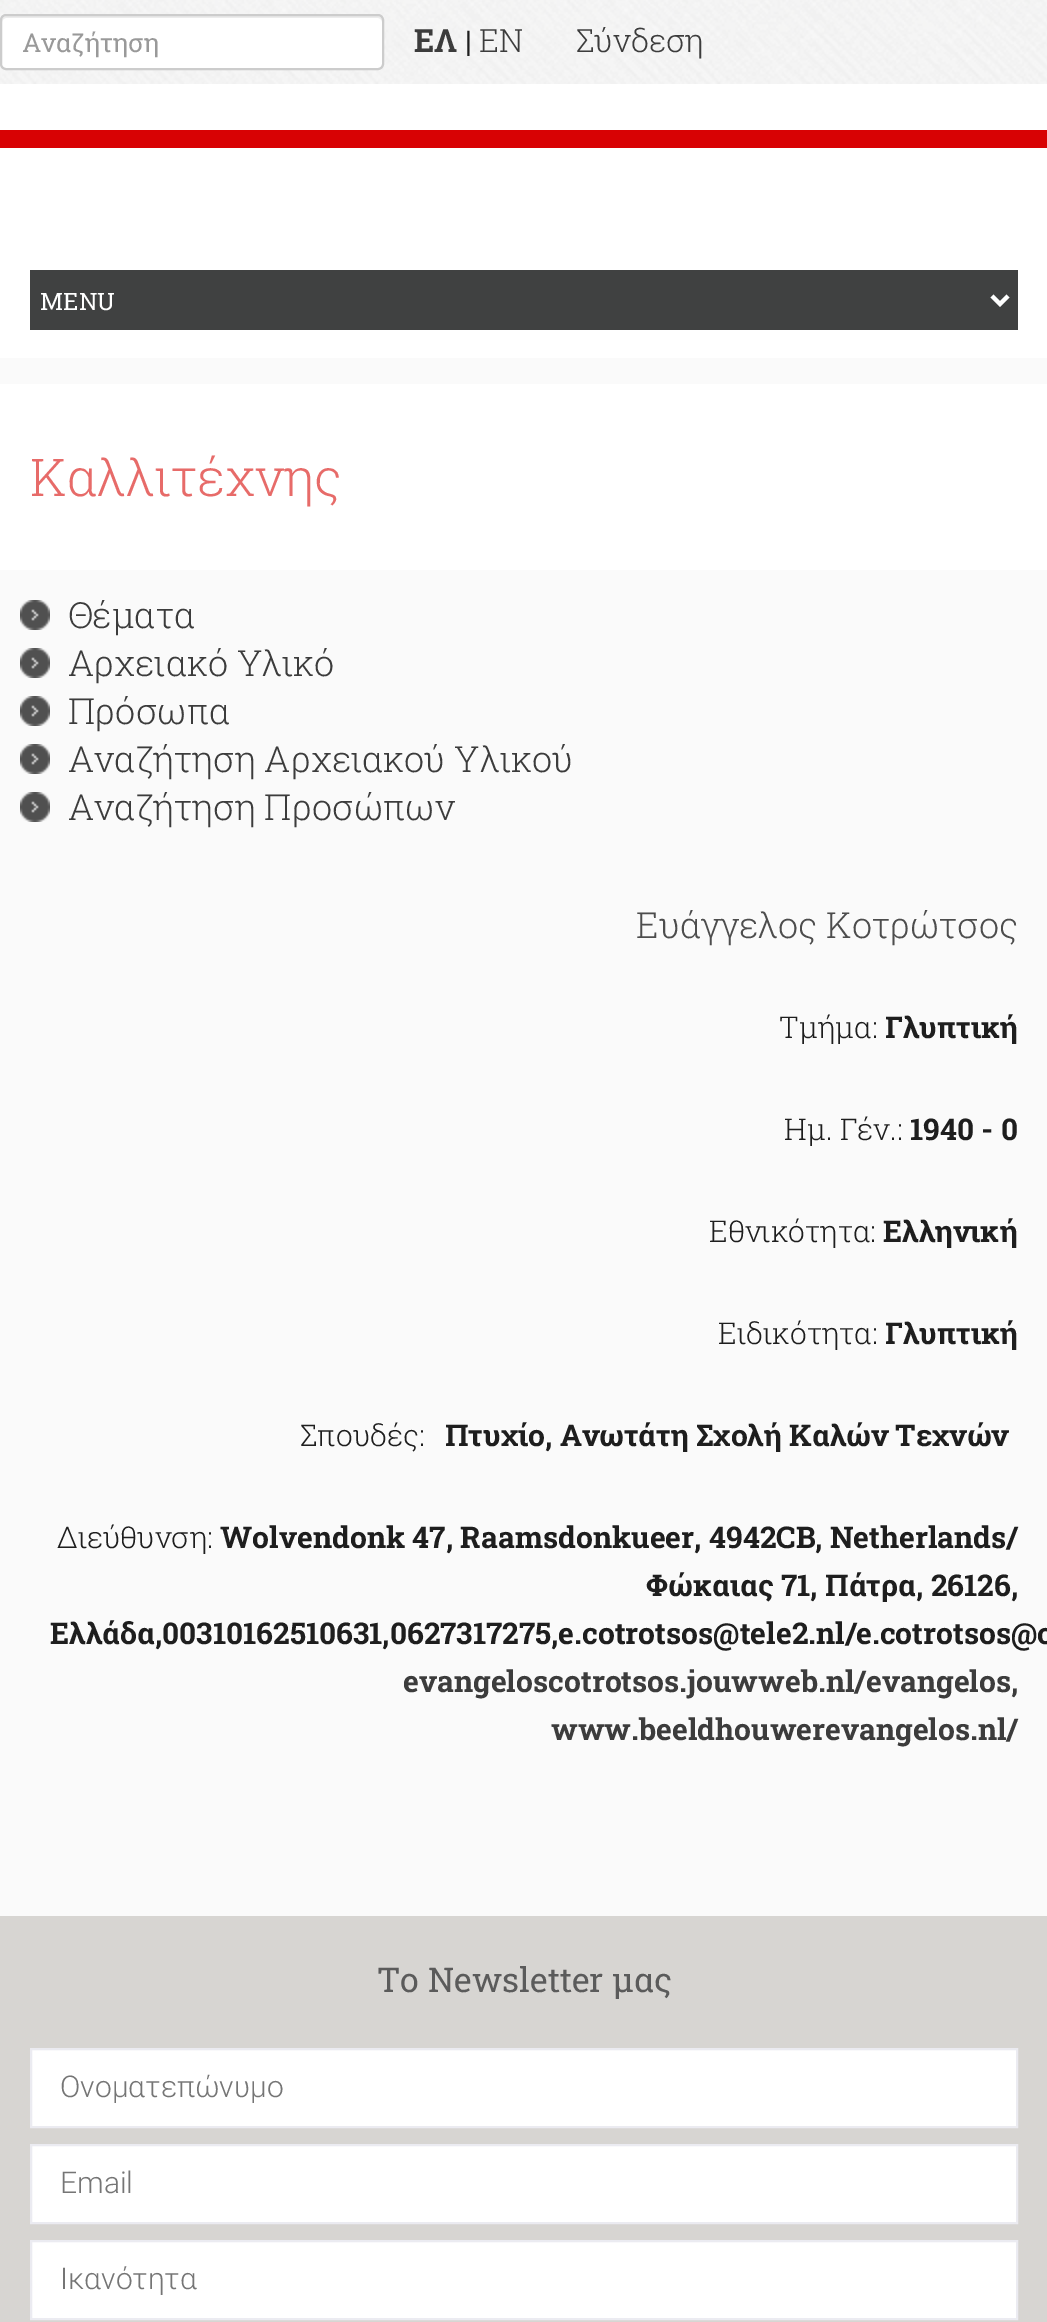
%!PS
<< /PageSize [1047 2322] >> setpagedevice
/rgb { dup -16 bitshift 255 div exch dup -8 bitshift 255 and 255 div exch 255 and 255 div setrgbcolor } def
/font { [ exch dup neg 0 0 3 -1 roll 0 0 ] selectfont } def
/text { moveto show } def
/roundrect { 5 dict begin { /r /h /w /y /x } { exch def } forall
  x r add y moveto x w add y 2 copy h add r arct x w add y h add x 1 index r arct
  x y h add x y r arct x y 2 copy exch w add exch r arct closepath end } def
/picture { 5 dict begin { /h /w /y /x /name } { exch def } forall
  gsave x y translate w h scale
  w h 8 [w 0 0 h 0 0] name (r) file false 3 colorimage grestore end } def
0 2322 translate 1 -1 scale
4 setmiterlimit
/s1 { /RobotoSlab-Regular 26 font 16#999999 rgb } def
/s2 { /RobotoSlab-Bold 32 font 16#3C3C3C rgb } def
/s3 { /RobotoSlab-Regular 30 font 16#1E1E1E rgb } def
/s4 { /RobotoSlab-Light 32 font 16#3C3C3C rgb } def
/s5 { /RobotoSlab-Regular 24 font 16#FFFFFF rgb } def
/s6 { /RobotoSlab-Light 52 font 16#E76B69 rgb } def
/s7 { /RobotoSlab-Light 36 font 16#3C3C3C rgb } def
/s8 { /RobotoSlab-Light 36 font 16#4D4D4D rgb } def
/s9 { /RobotoSlab-Light 30 font 16#1E1E1E rgb } def
/s10 { /RobotoSlab-Bold 30 font 16#1E1E1E rgb } def
/s11 { /RobotoSlab-Bold 30 font 16#3C3C3C rgb } def
/s12 { /RobotoSlab-Regular 34 font 16#5B5B5B rgb } def
/s13 { /Roboto-Light 30 font 16#757575 rgb } def
16#FFFFFF rgb
0 0 1047 2322 rectfill
(pic1.raw) 0 0 1047 84 picture
0 14 384 56 6 roundrect fill
16#ECECEC rgb
6 18 moveto 378 18 lineto 380 18 382 20 382 22 curveto 382 20 lineto 382 18 380 16 378 16 curveto 6 16 lineto 4 16 2 18 2 20 curveto 2 22 lineto 2 20 4 18 6 18 curveto closepath fill
16#CCCCCC rgb
2 setlinewidth
1 15 382 54 5 roundrect stroke
s1
(Αναζήτηση) 22 52 text
s2
(ΕΛ) 414 52 text
s3
(|) 465 52 text
s4
(EN) 479 52 text
(Σύνδεση) 576 52 text
16#D80204 rgb
0 130 1047 18 rectfill
16#404141 rgb
30 270 988 60 rectfill
16#FFFFFF rgb
4 setlinewidth
992 296 moveto 1000 304 lineto 1008 296 lineto stroke
s5
(MENU) 40 310 text
16#FAFAFA rgb
0 358 1047 26 rectfill
s6
(Καλλιτέχνης) 30 496 text
16#FAFAFA rgb
0 570 1047 1346 rectfill
(pic2.raw) 20 600 30 30 picture
s7
(Θέματα) 68 628 text
(pic2.raw) 20 648 30 30 picture
(Αρχειακό Υλικό) 68 676 text
(pic2.raw) 20 696 30 30 picture
(Πρόσωπα) 68 724 text
(pic2.raw) 20 744 30 30 picture
(Αναζήτηση Αρχειακού Υλικού) 68 772 text
(pic2.raw) 20 792 30 30 picture
(Αναζήτηση Προσώπων) 68 820 text
s8
(Ευάγγελος Κοτρώτσος) 636 938 text
s9
(Τμήμα:) 779 1038 text
s10
(Γλυπτική) 885 1038 text
s9
(Ημ. Γέν.:) 784 1140 text
s10
(1940 - 0) 910 1140 text
s9
(Εθνικότητα:) 709 1242 text
s10
(Ελληνική) 883 1242 text
s9
(Ειδικότητα:) 718 1344 text
s10
(Γλυπτική) 885 1344 text
s9
(Σπουδές:) 300 1446 text
s10
(Πτυχίο, Ανωτάτη Σχολή Καλών Τεχνών) 445 1446 text
s9
(Διεύθυνση:) 57 1548 text
s10
(Wolvendonk 47, Raamsdonkueer, 4942CB, Netherlands/) 220 1548 text
(Φώκαιας 71, Πάτρα, 26126,) 646 1596 text
(Ελλάδα,00310162510631,0627317275,e.cotrotsos@tele2.nl/e.cotrotsos@o) 50 1644 text
s11
(evangeloscotrotsos.jouwweb.nl/evangelos,) 403 1692 text
(www.beeldhouwerevangelos.nl/) 551 1740 text
16#D7D5D2 rgb
0 1916 1047 406 rectfill
s12
(Το Newsletter μας) 377 1992 text
16#FFFFFF rgb
31 2049 moveto 1017 2049 lineto 1017 2127 lineto 31 2127 lineto closepath gsave fill grestore
16#EBEBF1 rgb
2 setlinewidth
stroke
s13
(Ονοματεπώνυμο) 60 2097 text
16#FFFFFF rgb
31 2145 moveto 1017 2145 lineto 1017 2223 lineto 31 2223 lineto closepath gsave fill grestore
16#EBEBF1 rgb
stroke
s13
(Email) 60 2193 text
16#FFFFFF rgb
31 2241 moveto 1017 2241 lineto 1017 2319 lineto 31 2319 lineto closepath gsave fill grestore
16#EBEBF1 rgb
stroke
s13
(Ικανότητα) 60 2289 text
showpage
